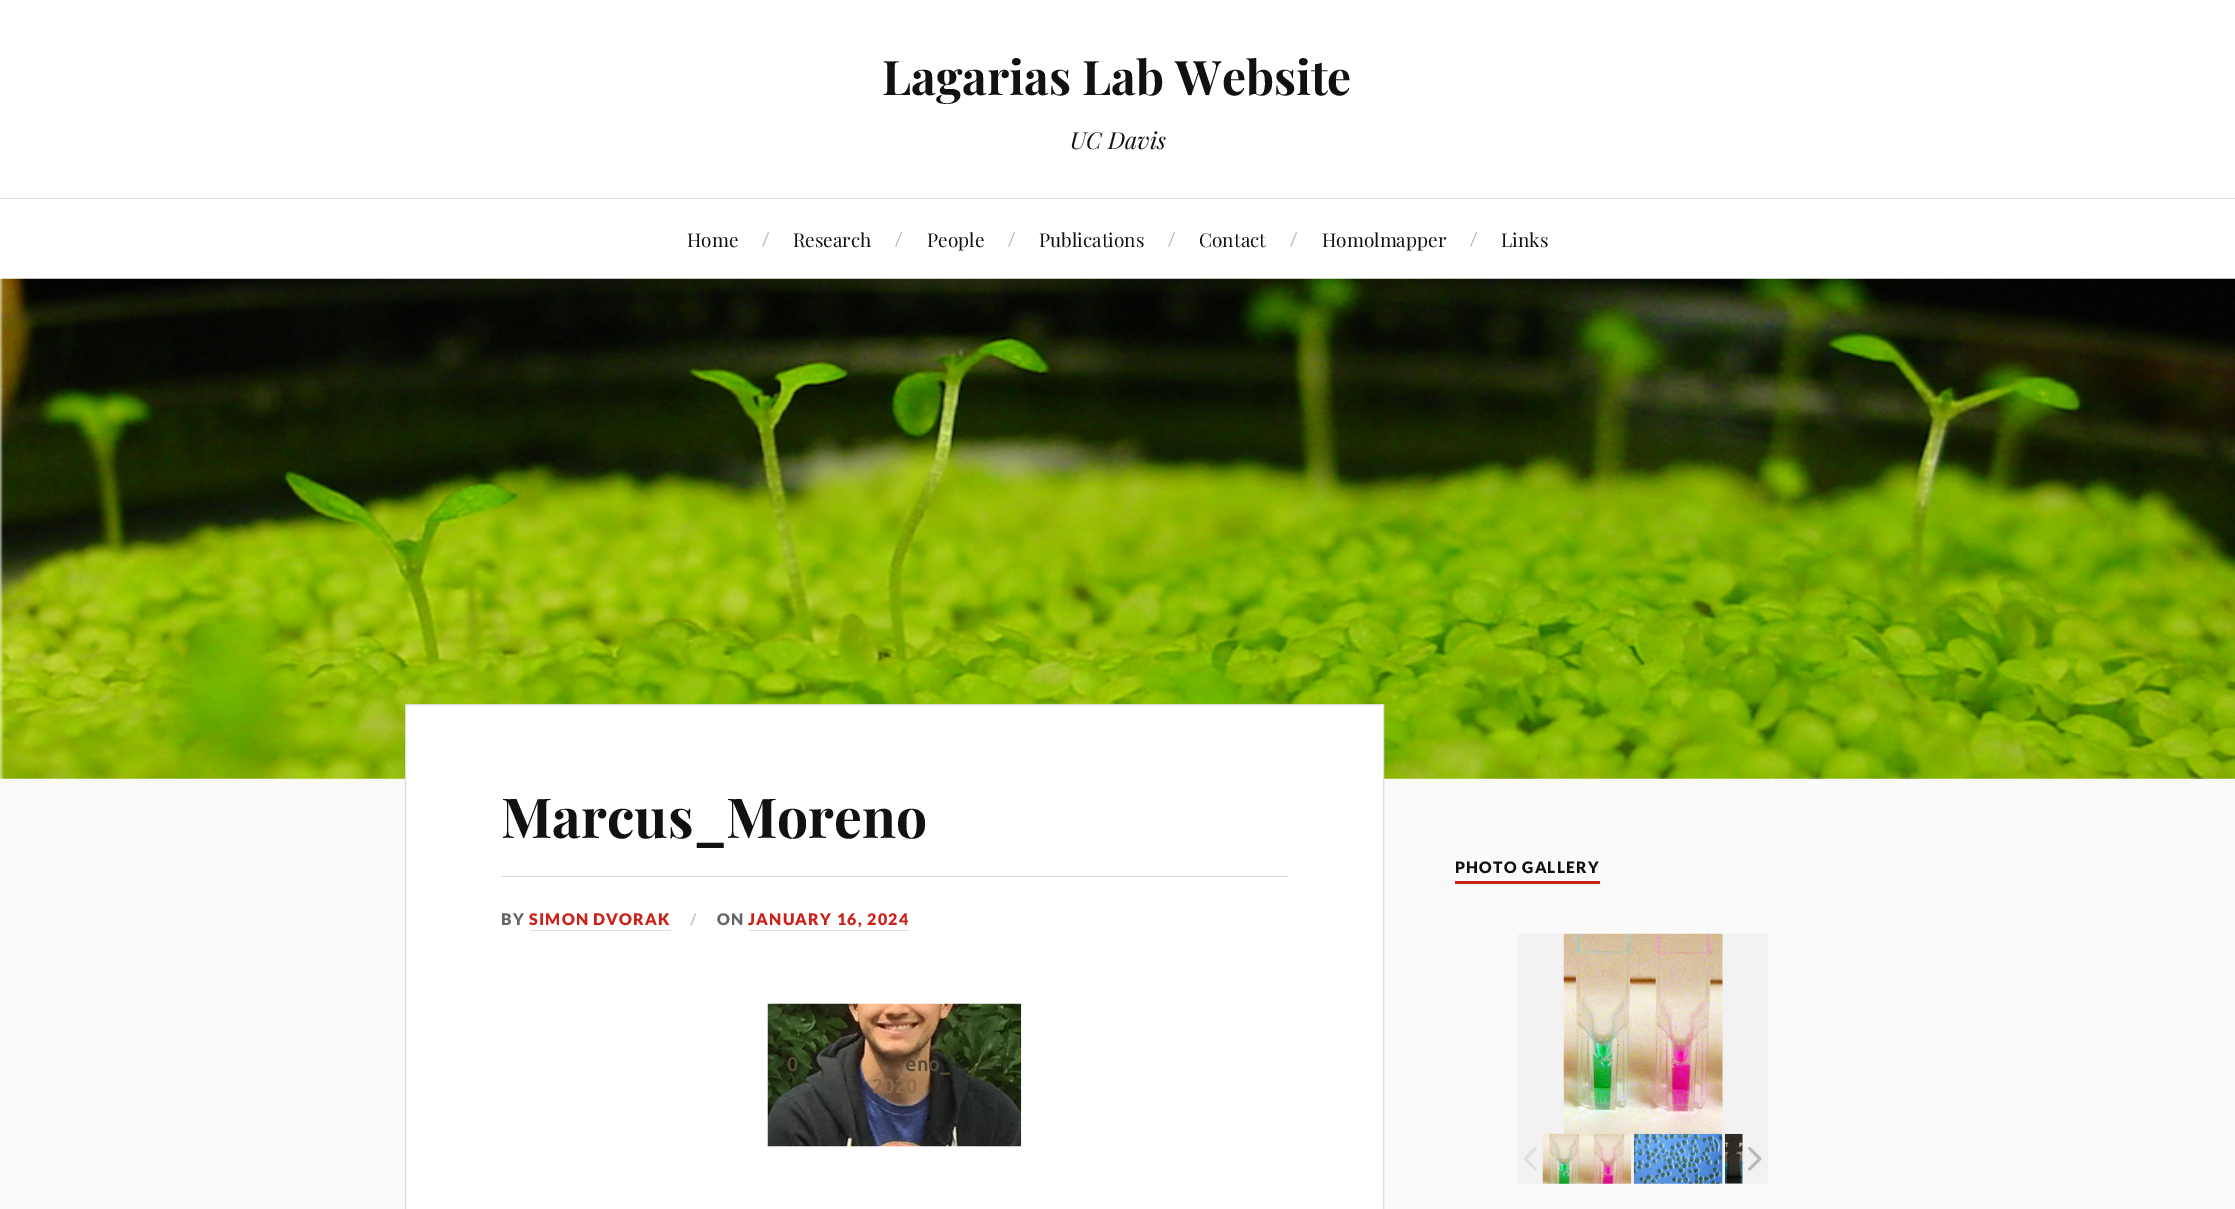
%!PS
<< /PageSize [2235 1209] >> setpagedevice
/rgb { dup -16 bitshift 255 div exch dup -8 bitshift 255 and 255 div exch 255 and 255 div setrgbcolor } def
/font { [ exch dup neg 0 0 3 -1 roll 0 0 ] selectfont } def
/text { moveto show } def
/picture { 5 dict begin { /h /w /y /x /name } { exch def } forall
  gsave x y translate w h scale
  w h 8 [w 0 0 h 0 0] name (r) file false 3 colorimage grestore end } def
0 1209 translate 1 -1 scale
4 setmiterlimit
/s1 { /PlayfairDisplay-Bold 47.75 font 16#111111 rgb } def
/s2 { /PlayfairDisplay-Italic 23.5 font 16#111111 rgb } def
/s3 { /PlayfairDisplay-Regular 19 font 16#111111 rgb } def
/s4 { /Lato-Regular 19 font 16#BBBBBB rgb } def
/s5 { /PlayfairDisplay-Bold 55.25 font 16#111111 rgb } def
/s6 { /Ubuntu-Bold 20 font 16#544B34 rgb } def
/s7 { /Ubuntu-Bold 20 font 16#8F6A4B rgb } def
16#FAFAFA rgb
0 0 2235 1209 rectfill
16#FFFFFF rgb
0 0 2235 198 rectfill
s1
(Lagarias Lab Website) 882 95 text
s2
(UC Davis) 1070 149 text
16#FFFFFF rgb
0 199 2235 80 rectfill
16#DDDDDD rgb
0 198 2235 1 rectfill
s3
(Home) 687 247 text
s4
(/) 762 246 text
s3
(Research) 793 247 text
s4
(/) 895 246 text
s3
(People) 927 247 text
s4
(/) 1008 246 text
s3
(Publications) 1039 247 text
s4
(/) 1168 246 text
s3
(Contact) 1199 247 text
s4
(/) 1290 246 text
s3
(Homolmapper) 1322 247 text
s4
(/) 1470 246 text
s3
(Links) 1501 247 text
(pic1.raw) 0 278 2235 501 picture
16#FFFFFF rgb
405.5 704.5 moveto 1383.5 704.5 lineto 1383.5 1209.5 lineto 405.5 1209.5 lineto closepath gsave fill grestore
16#DDDDDD rgb
stroke
s5
(Marcus_Moreno) 501 838 text
16#DDDDDD rgb
501 876 787 1 rectfill
/Lato-Black 16 font
16#666666 rgb
501 925 moveto 1.25 0 (BY) ashow
16#CA2017 rgb
529 925 moveto 1.25 0 (SIMON DVORAK) ashow
16#DDDDDD rgb
530 930 141 1 rectfill
16#CCCCCC rgb
690 925 moveto 1.25 0 (/) ashow
16#666666 rgb
717 925 moveto 1.25 0 (ON) ashow
16#CA2017 rgb
748 925 moveto 1.25 0 (JANUARY 16, 2024) ashow
16#DDDDDD rgb
749 930 160 1 rectfill
(pic2.raw) 767 1003 255 144 picture
s6
(0) 787 1071 text
(eno_) 905 1071 text
(-) 995 1071 text
s7
(2020) 872 1093 text
16#CA2017 rgb
1455 881 145 3 rectfill
/Lato-Black 15.75 font
16#111111 rgb
1455 873 moveto 1.25 0 (PHOTO GALLERY) ashow
16#F2F2F2 rgb
1518 934 250 250 rectfill
(pic5.raw) 1542 1133 90 51 picture
(pic6.raw) 1633 1133 90 51 picture
(pic3.raw) 1563 933 160 201 picture
(pic4.raw) 1523 1147 14 24 picture
(pic7.raw) 1725 1133 18 51 picture
(pic8.raw) 1748 1146 14 25 picture
showpage
